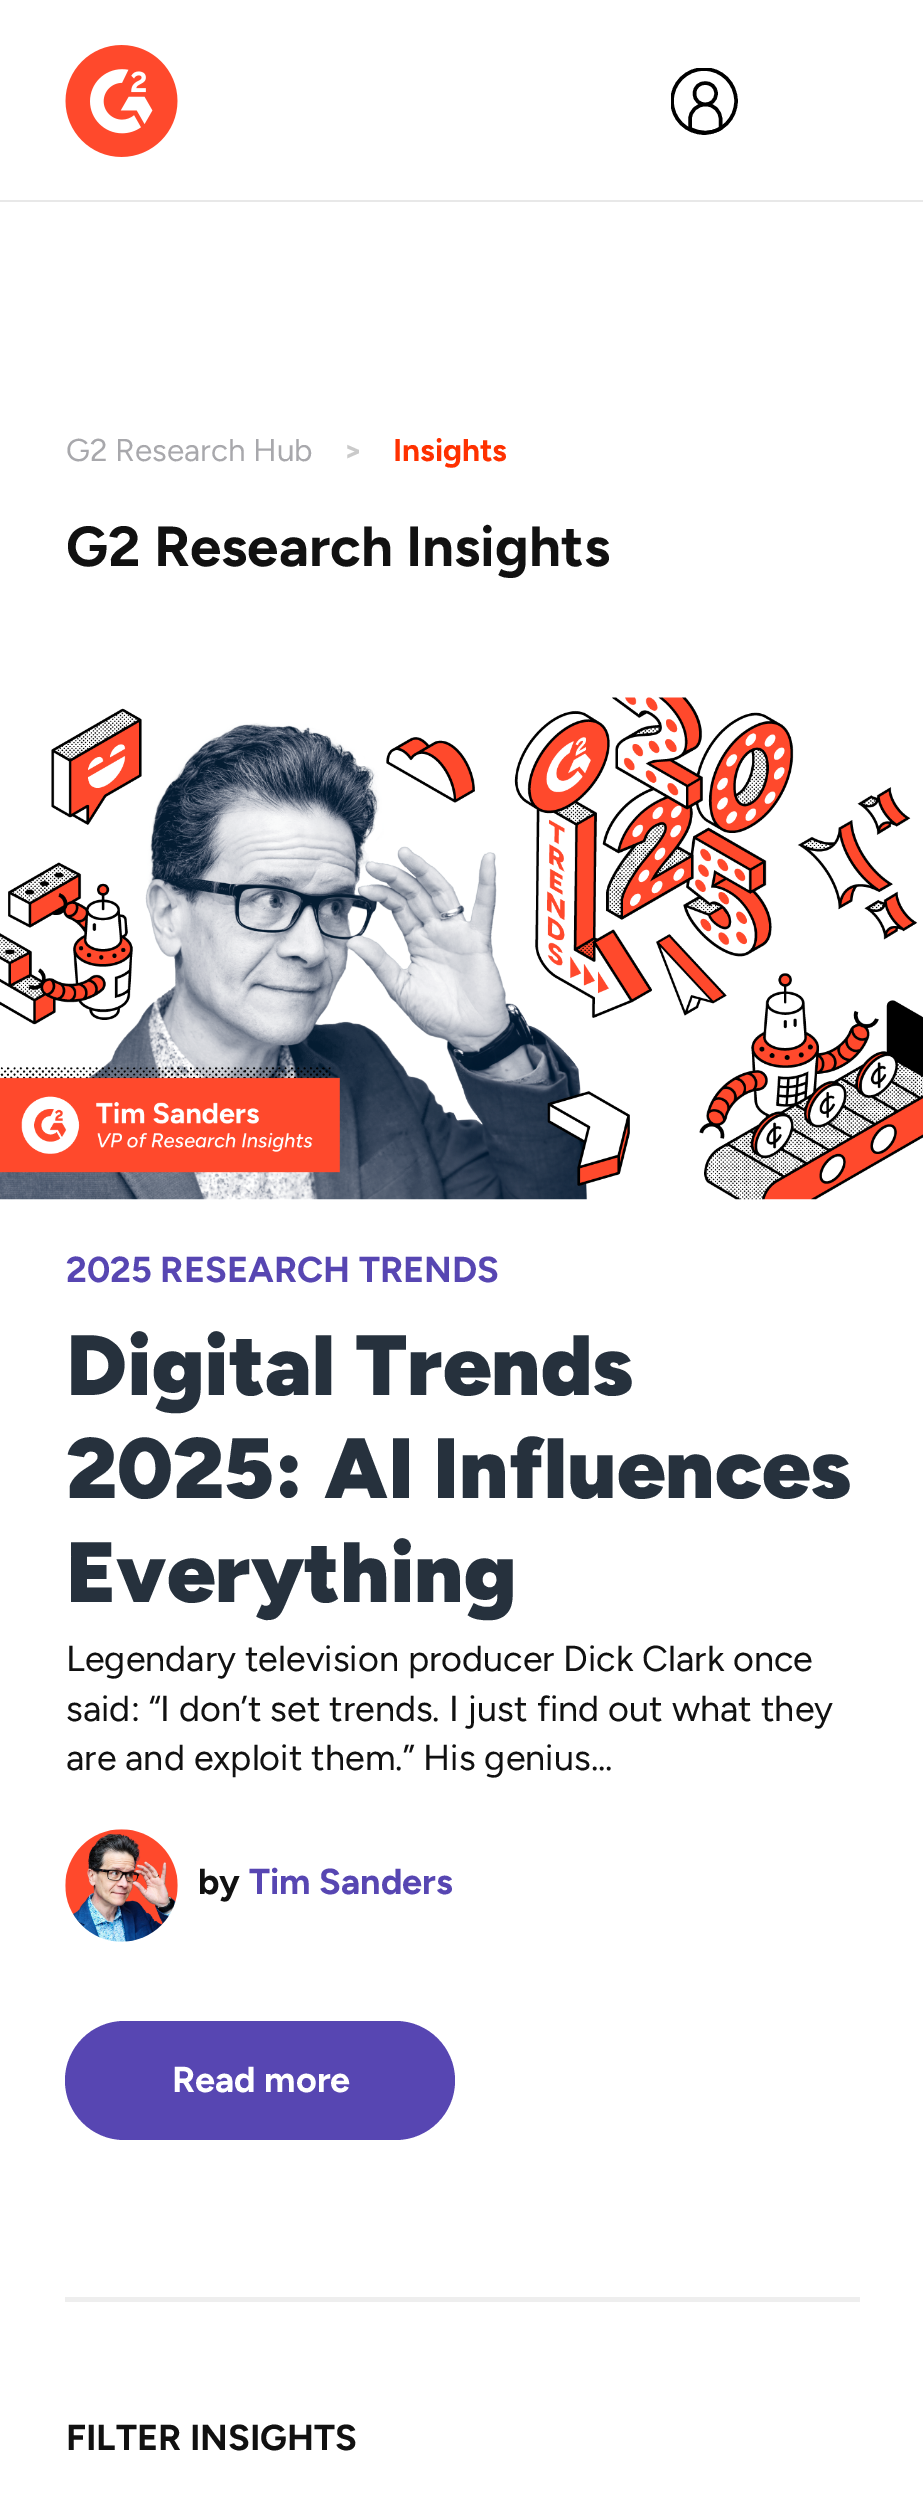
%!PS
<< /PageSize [923 2495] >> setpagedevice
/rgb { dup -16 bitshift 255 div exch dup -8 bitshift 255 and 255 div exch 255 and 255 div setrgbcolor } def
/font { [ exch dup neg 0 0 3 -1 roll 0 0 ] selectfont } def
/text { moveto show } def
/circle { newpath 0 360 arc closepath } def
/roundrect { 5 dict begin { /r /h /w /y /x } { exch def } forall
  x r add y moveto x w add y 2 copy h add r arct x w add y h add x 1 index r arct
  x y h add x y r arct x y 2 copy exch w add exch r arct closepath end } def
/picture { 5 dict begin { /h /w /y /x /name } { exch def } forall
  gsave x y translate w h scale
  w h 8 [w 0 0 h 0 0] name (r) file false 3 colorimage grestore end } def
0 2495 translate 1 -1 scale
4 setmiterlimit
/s1 { /Figtree-Regular 31.5 font 16#A8A8AC rgb } def
/s2 { /Figtree-Bold 31.5 font 16#CACACA rgb } def
/s3 { /Figtree-Bold 31.5 font 16#FF3100 rgb } def
/s4 { /Figtree-Bold 56.25 font 16#111111 rgb } def
/s5 { /Figtree-Bold 36 font 16#5746B2 rgb } def
/s6 { /Figtree-Black 85.5 font 16#26313D rgb } def
/s7 { /Figtree-Regular 36 font 16#111111 rgb } def
/s8 { /Figtree-Bold 36 font 16#111111 rgb } def
/s9 { /Figtree-Bold 36 font 16#FFFFFF rgb } def
16#FFFFFF rgb
0 0 923 2495 rectfill
16#E8E8E8 rgb
0 200 923 2 rectfill
(pic1.raw) 65 45 113 112 picture
gsave
671 68 67 67 rectclip
16#000000 rgb
3.4 setlinewidth
704 101 32 circle stroke
grestore
16#000000 rgb
3.4 setlinewidth
1 setlinecap
1 setlinejoin
720.5 128.5 moveto 711 134 700 134 690 128.5 curveto 690 119.5 lineto 690 111 697 104.5 705.5 104.5 curveto 714 104.5 720.5 111 720.5 119.5 curveto closepath 716 93.5 moveto 716 108 694.5 108 694.5 93.5 curveto 694.5 79.5 716 79.5 716 93.5 curveto closepath stroke
s1
(G2 Research Hub) 66 461 text
s2
(>) 343 461 text
s3
(Insights) 393 461 text
s4
(G2 Research Insights) 66 566 text
(pic2.raw) 0 697 923 503 picture
16#EEEEEE rgb
65 2297 795 5 rectfill
s5
(2025 RESEARCH TRENDS) 66 1282 text
s6
(Digital Trends) 66 1395 text
(2025: AI Influences) 66 1498 text
(Everything) 66 1602 text
s7
(Legendary television producer Dick Clark once) 66 1671 text
(said: “I don’t set trends. I just find out what they) 66 1721 text
(are and exploit them.” His genius...) 66 1770 text
(pic3.raw) 65 1829 113 113 picture
s8
(by) 198 1894 text
s5
(Tim Sanders) 249 1894 text
65 2021 390 119 59.5 roundrect fill
s9
(Read more) 172 2092 text
s8
(FILTER INSIGHTS) 66 2450 text
showpage
